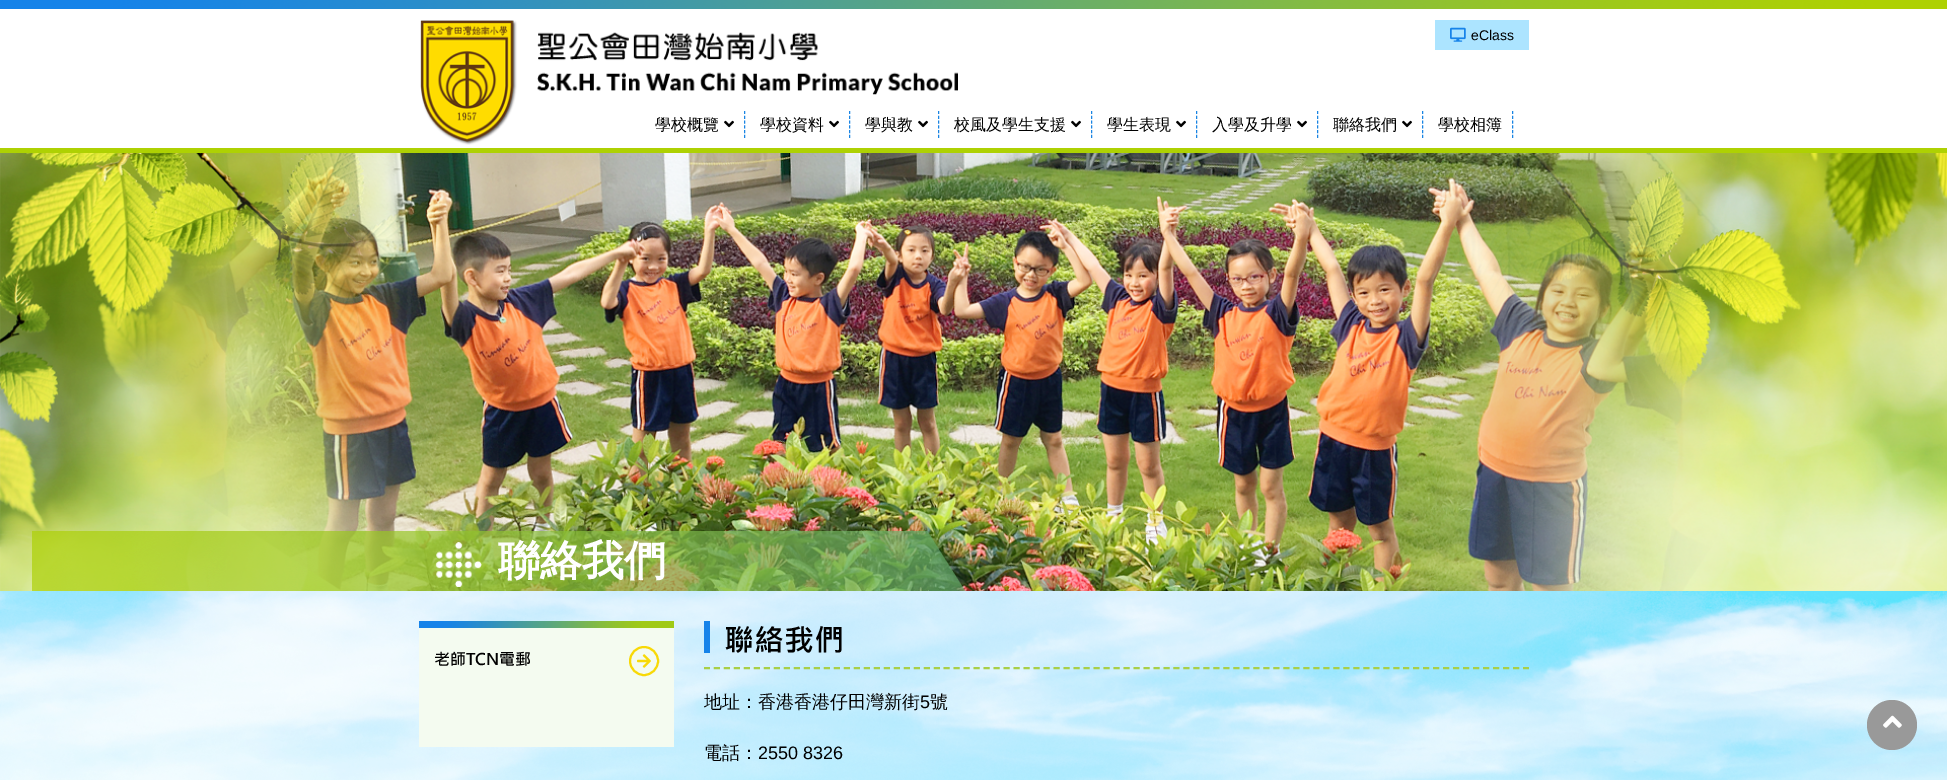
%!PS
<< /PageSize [1947 780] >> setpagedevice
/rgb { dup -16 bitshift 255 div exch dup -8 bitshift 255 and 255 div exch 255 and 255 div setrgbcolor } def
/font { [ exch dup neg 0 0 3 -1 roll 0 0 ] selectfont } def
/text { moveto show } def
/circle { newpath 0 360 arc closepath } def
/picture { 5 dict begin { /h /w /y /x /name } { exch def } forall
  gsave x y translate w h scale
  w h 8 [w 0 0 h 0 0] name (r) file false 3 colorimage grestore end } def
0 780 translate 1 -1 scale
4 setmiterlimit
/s1 { /LiberationSans-Regular 14 font 16#000000 rgb } def
/s2 { /WenQuanYiZenHei-Medium 16 font 16#000000 rgb } def
/s3 { /WenQuanYiZenHei-Bold 42 font 16#FFFFFF rgb } def
/s4 { /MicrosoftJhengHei-Bold 16 font 16#000000 rgb } def
/s5 { /MicrosoftJhengHei-Bold 30 font 16#000000 rgb } def
/s6 { /WenQuanYiZenHei-Medium 18 font 16#000000 rgb } def
/s7 { /LiberationSans-Regular 18 font 16#000000 rgb } def
16#FFFFFF rgb
0 0 1947 780 rectfill
(pic1.raw) 0 0 1947 9 picture
16#AED103 rgb
0 148 1947 5 rectfill
(pic2.raw) 420 20 538 125 picture
16#ACE4FF rgb
1435 20 94 30 rectfill
(pic3.raw) 1450 27 16 15 picture
s1
(eClass) 1471 40 text
16#1984E3 rgb
[3 1.8] 0 setdash
744.5 111 moveto 744.5 138 lineto stroke
s2
(學校概覽) 655 130 text
(pic4.raw) 724 120 10 8 picture
16#1984E3 rgb
849.5 111 moveto 849.5 138 lineto stroke
s2
(學校資料) 760 130 text
(pic4.raw) 829 120 10 8 picture
16#1984E3 rgb
938.5 111 moveto 938.5 138 lineto stroke
s2
(學與教) 865 130 text
(pic4.raw) 918 120 10 8 picture
16#1984E3 rgb
1091.5 111 moveto 1091.5 138 lineto stroke
s2
(校風及學生支援) 954 130 text
(pic4.raw) 1071 120 10 8 picture
16#1984E3 rgb
1196.5 111 moveto 1196.5 138 lineto stroke
s2
(學生表現) 1107 130 text
(pic4.raw) 1176 120 10 8 picture
16#1984E3 rgb
1317.5 111 moveto 1317.5 138 lineto stroke
s2
(入學及升學) 1212 130 text
(pic4.raw) 1297 120 10 8 picture
16#1984E3 rgb
1422.5 111 moveto 1422.5 138 lineto stroke
s2
(聯絡我們) 1333 130 text
(pic4.raw) 1402 120 10 8 picture
16#1984E3 rgb
1512.5 111 moveto 1512.5 138 lineto stroke
s2
(學校相簿) 1438 130 text
(pic5.raw) 0 153 1947 438 picture
(pic6.raw) 32 531 934 60 picture
(pic7.raw) 436 542 46 45 picture
s3
(聯絡我們) 498 575 text
(pic8.raw) 0 591 1947 189 picture
16#F4FBF0 rgb
419 628 255 119 rectfill
(pic9.raw) 419 621 255 7 picture
s4
(老師TCN電郵) 434 665 text
16#F8D907 rgb
2 setlinewidth
[] 0 setdash
644 661 14 circle stroke
(pic10.raw) 637 654 14 14 picture
16#1683E9 rgb
704 621 6 32 rectfill
16#A8CF47 rgb
[6 3.99] 0 setdash
704 668 moveto 1529 668 lineto stroke
s5
(聯絡我們) 724 651 text
s6
(地址：香港香港仔田灣新街) 704 708 text
s7
(5) 920 708 text
s6
(號) 930 708 text
(電話：) 704 759 text
s7
(2550 8326) 758 759 text
16#999999 rgb
1892 725 25 circle fill
(pic11.raw) 1883 715 19 13 picture
showpage
